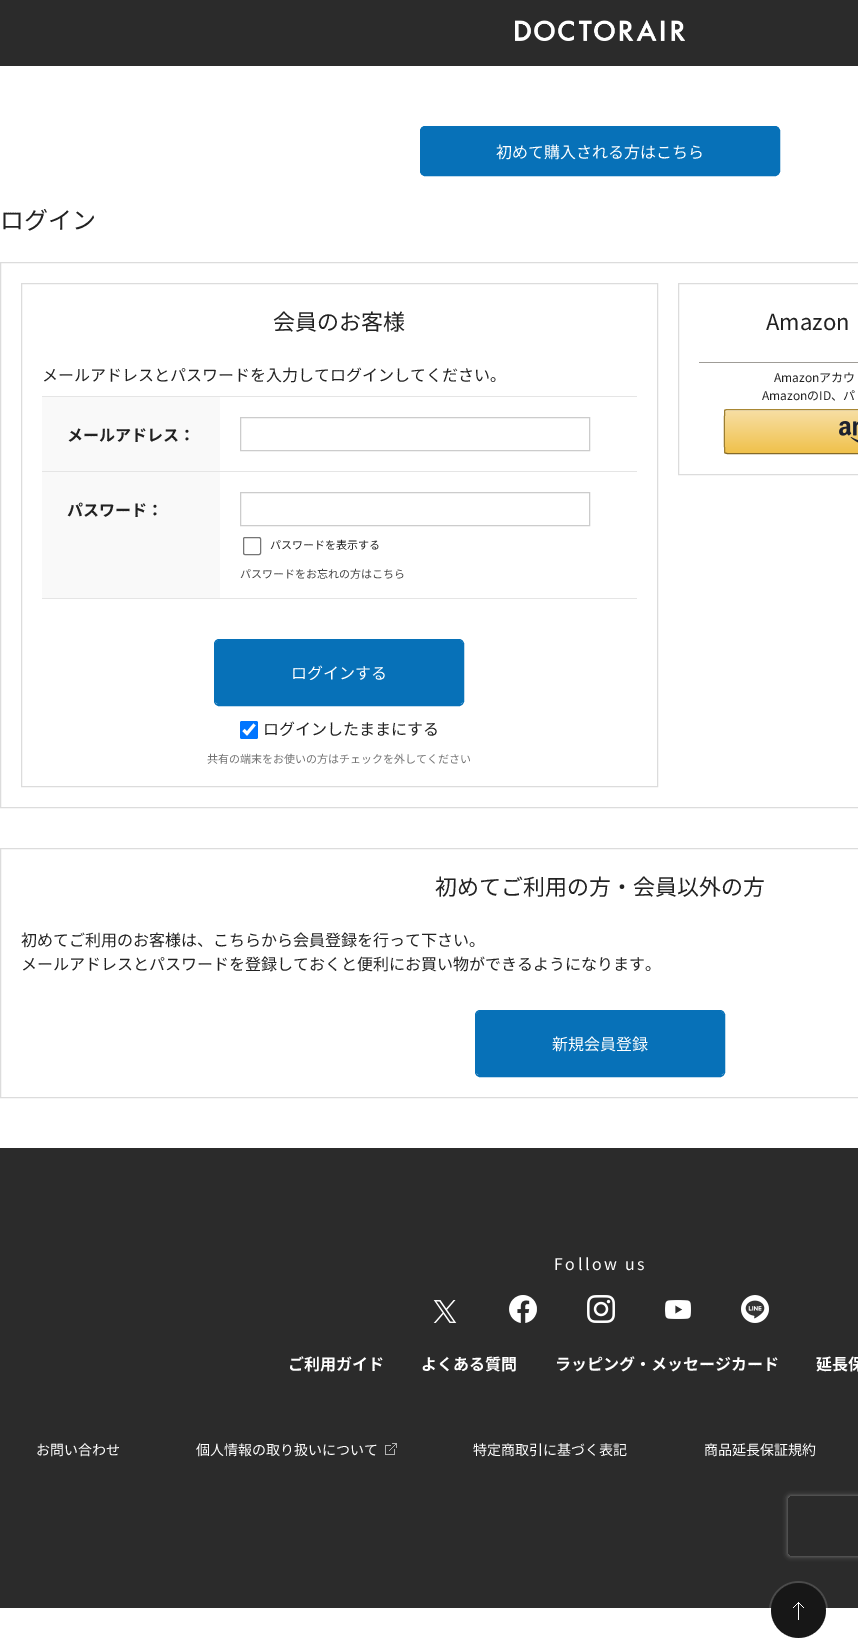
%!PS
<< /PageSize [858 1650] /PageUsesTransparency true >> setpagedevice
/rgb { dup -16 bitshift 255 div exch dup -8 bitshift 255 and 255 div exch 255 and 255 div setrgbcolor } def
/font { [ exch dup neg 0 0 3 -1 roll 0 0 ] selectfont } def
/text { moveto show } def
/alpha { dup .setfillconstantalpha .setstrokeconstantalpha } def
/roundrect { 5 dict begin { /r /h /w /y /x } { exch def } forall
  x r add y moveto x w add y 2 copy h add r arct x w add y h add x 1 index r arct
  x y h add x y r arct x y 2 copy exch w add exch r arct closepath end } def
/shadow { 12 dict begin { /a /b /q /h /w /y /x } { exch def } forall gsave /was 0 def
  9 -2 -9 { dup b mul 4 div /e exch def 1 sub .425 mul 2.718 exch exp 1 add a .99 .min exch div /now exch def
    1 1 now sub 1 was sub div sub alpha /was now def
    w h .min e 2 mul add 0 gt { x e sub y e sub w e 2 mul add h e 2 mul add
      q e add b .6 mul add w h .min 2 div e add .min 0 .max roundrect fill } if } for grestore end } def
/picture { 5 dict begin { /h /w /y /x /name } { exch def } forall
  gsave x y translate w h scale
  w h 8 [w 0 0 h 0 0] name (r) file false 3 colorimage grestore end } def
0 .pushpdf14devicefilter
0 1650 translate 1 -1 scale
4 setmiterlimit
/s1 { /NotoSansJP-Regular 16 font 16#FFFFFF rgb } def
/s2 { /NotoSansJP-Regular 24 font 16#222222 rgb } def
/s3 { /NotoSansJP-Regular 22 font 16#222222 rgb } def
/s4 { /NotoSansJP-Regular 16 font 16#222222 rgb } def
/s5 { /NotoSansJP-Bold 16 font 16#222222 rgb } def
/s6 { /NotoSansJP-Regular 11 font 16#222222 rgb } def
/s7 { /NotoSansJP-Regular 11 font 16#444444 rgb } def
/s8 { /NotoSansJP-Regular 11 font 16#737373 rgb } def
/s9 { /NotoSansJP-Regular 12 font 16#222222 rgb } def
/s10 { /NotoSansJP-Bold 16 font 16#FFFFFF rgb } def
/s11 { /NotoSansJP-Regular 14 font 16#FFFFFF rgb } def
16#FFFFFF rgb
0 0 858 1650 rectfill
16#2B2B2B rgb
0 0 858 66 rectfill
(pic1.raw) 515 20 170 21 picture
16#0771B8 rgb
420.5 126.5 359 49 4.5 roundrect gsave fill grestore
stroke
s1
(初めて購入される方はこちら) 496 158 text
s2
(ログイン) 0 229 text
16#DCDCDC rgb
0.5 262.5 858 545 rectstroke
21.5 283.5 636 503 rectstroke
s3
(会員のお客様) 273 330 text
s4
(メールアドレスとパスワードを入力してログインしてください。) 42 381 text
16#E5E5E5 rgb
42 396 595 1 rectfill
16#F9F9F9 rgb
42 397 178 74 rectfill
s5
(メールアドレス：) 67 441 text
16#CCCCCC rgb
240.5 417.5 349 33 rectstroke
16#E5E5E5 rgb
42 471 595 1 rectfill
42 598 595 1 rectfill
16#F9F9F9 rgb
42 472 178 126 rectfill
s5
(パスワード：) 67 516 text
16#CCCCCC rgb
240.5 492.5 349 33 rectstroke
16#767676 rgb
243.5 537.5 17 17 1.5 roundrect stroke
s6
(パスワードを表示する) 270 549 text
s7
(パスワードをお忘れの方はこちら) 240 578 text
16#0771B8 rgb
219 640 moveto 459 640 lineto 461 640 463 642 463 644 curveto 463 701 lineto 463 703 461 704 459 704 curveto 219 704 lineto 217 704 215 703 215 701 curveto 215 644 lineto 215 642 217 640 219 640 curveto closepath fill
214.5 639.5 249 66 4.5 roundrect stroke
217 704 245 1 rectfill
s1
(ログインする) 291 679 text
16#0075FF rgb
240 721 18 18 2 roundrect fill
16#FFFFFF rgb
2.9 setlinewidth
243.5 730 moveto 247 733.5 lineto 254.5 724.5 lineto stroke
s4
(ログインしたままにする) 263 735 text
s8
(共有の端末をお使いの方はチェックを外してください) 207 763 text
16#DCDCDC rgb
1 setlinewidth
678.5 283.5 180 191 rectstroke
s3
(Amazon) 766 330 text
16#9F9C97 rgb
699 362 159 1 rectfill
s9
(Amazonアカウ) 774 382 text
(AmazonのID、パ) 762 400 text
gsave
724 409 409 45 3 roundrect clip newpath
gsave 724 410 moveto 858 410 lineto 858 453 lineto 724 453 lineto closepath clip newpath
<< /ShadingType 2 /ColorSpace /DeviceRGB /Coords [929 410 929 453] /Extend [true true] /Function << /FunctionType 2 /Domain [0 1] /C0 [0.969 0.875 0.647] /C1 [0.941 0.757 0.294] /N 1 >> >> shfill grestore
grestore
16#FAECC8 rgb
727 411 moveto 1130 411 lineto 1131 411 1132 412 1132 413 curveto 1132 412 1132 411 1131 410 curveto 727 410 lineto 725 411 lineto 725 413 lineto 725 412 726 411 727 411 curveto closepath fill
16#A88734 rgb
725 410 moveto 727 409.5 lineto 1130 409.5 lineto 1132 410 lineto stroke
16#846A29 rgb
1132 453 moveto 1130 453.5 lineto 727 453.5 lineto 725 453 lineto stroke
16#9C7E31 rgb
725 453 moveto 724 451.5 724 411.5 725 410 curveto stroke
(pic2.raw) 839 421 19 22 picture
16#DCDCDC rgb
0.5 848.5 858 249 rectstroke
s3
(初めてご利用の方・会員以外の方) 435 895 text
s4
(初めてご利用のお客様は、こちらから会員登録を行って下さい。) 21 946 text
(メールアドレスとパスワードを登録しておくと便利にお買い物ができるようになります。) 21 970 text
16#0771B8 rgb
480 1011 moveto 720 1011 lineto 722 1011 724 1013 724 1015 curveto 724 1072 lineto 724 1074 722 1075 720 1075 curveto 480 1075 lineto 478 1075 476 1074 476 1072 curveto 476 1015 lineto 476 1013 478 1011 480 1011 curveto closepath fill
475.5 1010.5 249 66 4.5 roundrect stroke
478 1075 245 1 rectfill
s1
(新規会員登録) 552 1050 text
16#2B2B2B rgb
0 1148 858 460 rectfill
16#FFFFFF rgb
554 1270 moveto 2.5 0 (Follow us) ashow
(pic3.raw) 433 1300 24 23 picture
(pic4.raw) 509 1295 28 28 picture
(pic5.raw) 587 1295 28 28 picture
(pic6.raw) 665 1300 26 19 picture
(pic7.raw) 741 1295 28 28 picture
s10
(ご利用ガイド) 288 1370 text
(よくある質問) 421 1370 text
(ラッピング・メッセージカード) 555 1370 text
(延長保) 816 1370 text
s11
(お問い合わせ) 36 1455 text
(個人情報の取り扱いについて) 196 1455 text
(pic8.raw) 385 1443 12 12 picture
(特定商取引に基づく表記) 473 1455 text
(商品延長保証規約) 704 1455 text
(pic9.raw) 769 1581 59 57 picture
gsave
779 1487 moveto 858 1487 lineto 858 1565 lineto 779 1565 lineto closepath 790 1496 moveto 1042 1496 lineto 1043 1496 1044 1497 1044 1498 curveto 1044 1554 lineto 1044 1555 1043 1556 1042 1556 curveto 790 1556 lineto 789 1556 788 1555 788 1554 curveto 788 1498 lineto 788 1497 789 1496 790 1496 curveto closepath eoclip newpath
16#808080 rgb
788 1496 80 60 2 2.5 1 shadow
grestore
.poppdf14devicefilter showpage
